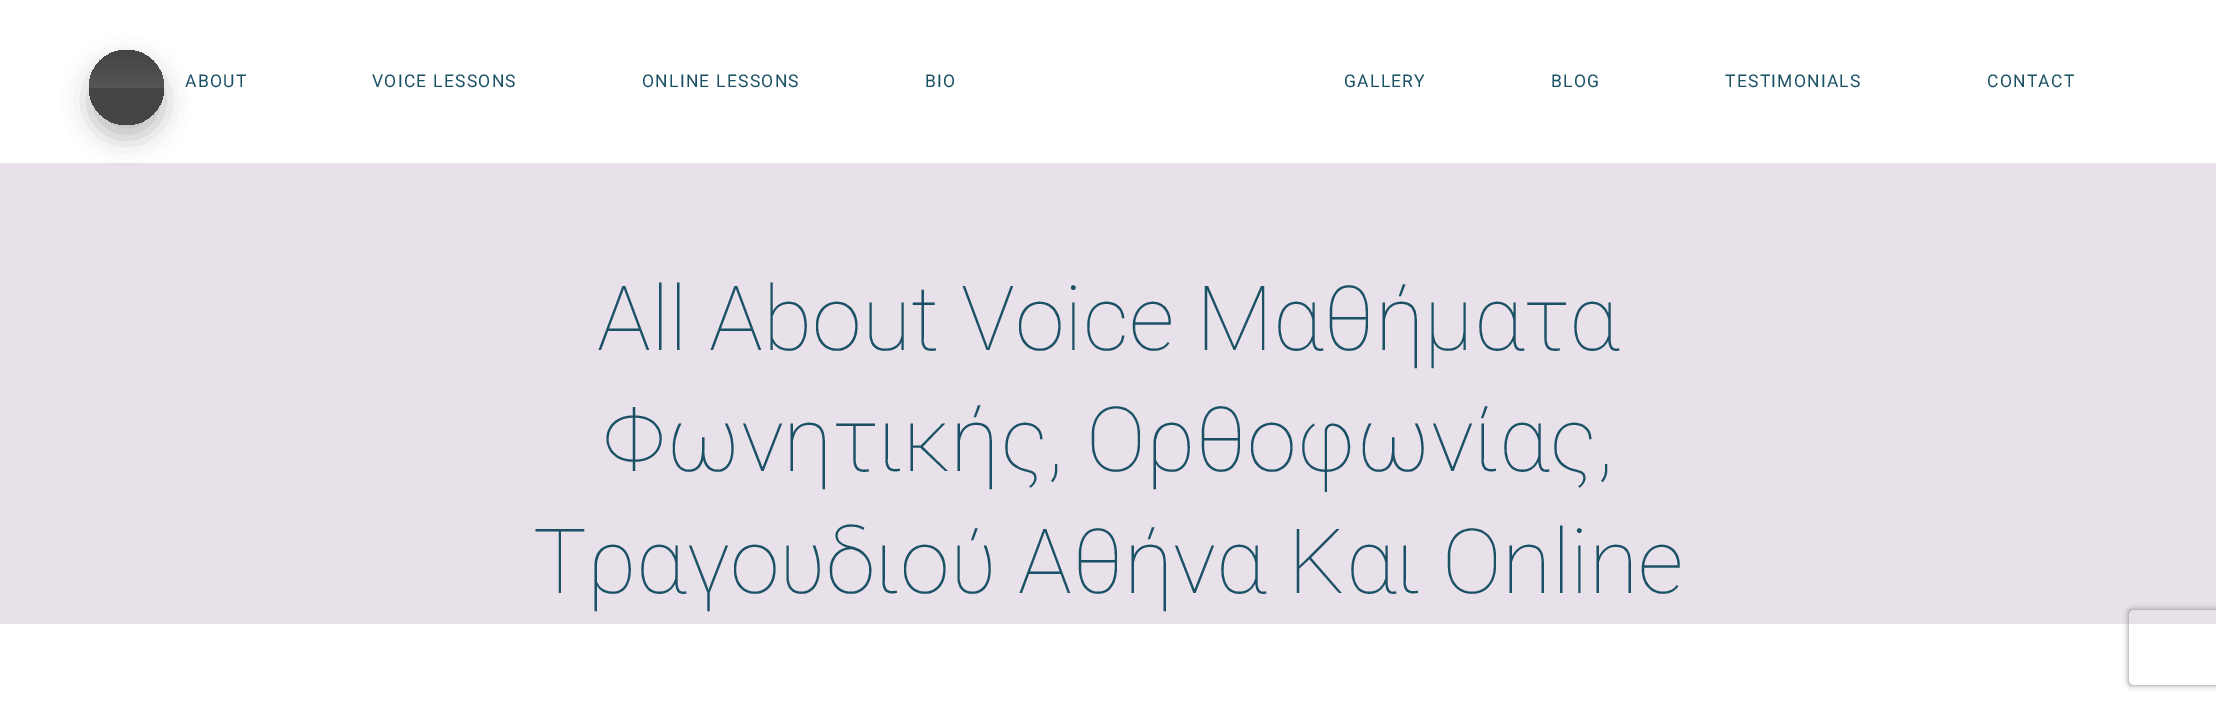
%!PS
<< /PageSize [2216 702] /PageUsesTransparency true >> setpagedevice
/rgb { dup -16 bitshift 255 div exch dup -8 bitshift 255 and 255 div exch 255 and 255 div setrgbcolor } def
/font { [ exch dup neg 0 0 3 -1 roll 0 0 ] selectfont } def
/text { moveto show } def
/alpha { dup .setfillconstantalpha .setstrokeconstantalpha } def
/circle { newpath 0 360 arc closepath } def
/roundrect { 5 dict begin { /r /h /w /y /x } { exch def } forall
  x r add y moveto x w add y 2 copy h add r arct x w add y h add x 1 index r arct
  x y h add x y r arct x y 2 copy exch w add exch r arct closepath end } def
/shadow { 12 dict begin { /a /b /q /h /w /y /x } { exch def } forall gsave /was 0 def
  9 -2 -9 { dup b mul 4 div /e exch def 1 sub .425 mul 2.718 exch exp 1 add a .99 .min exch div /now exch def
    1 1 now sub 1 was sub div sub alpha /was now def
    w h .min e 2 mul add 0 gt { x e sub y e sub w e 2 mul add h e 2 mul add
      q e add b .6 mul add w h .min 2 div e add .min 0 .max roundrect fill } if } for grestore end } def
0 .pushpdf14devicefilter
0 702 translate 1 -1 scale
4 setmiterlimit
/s1 { /Roboto-Thin 90 font 16#1A5165 rgb } def
16#FFFFFF rgb
0 0 2216 702 rectfill
16#E9E1EA rgb
0 163 2216 461 rectfill
16#000000 rgb
89 63 75 75 37.5 12.5 0.25 shadow
gsave 126.5 87.5 37.5 circle clip newpath
<< /ShadingType 2 /ColorSpace /DeviceRGB /Coords [89 50 89 125] /Extend [true true] /Function << /FunctionType 3 /Domain [0 1] /Functions [<< /FunctionType 2 /Domain [0 1] /C0 [0.267 0.267 0.267] /C1 [0.333 0.333 0.333] /N 1 >> << /FunctionType 2 /Domain [0 1] /C0 [0.333 0.333 0.333] /C1 [0.267 0.267 0.267] /N 1 >> << /FunctionType 2 /Domain [0 1] /C0 [0.267 0.267 0.267] /C1 [0.267 0.267 0.267] /N 1 >>] /Bounds [0.5 0.51] /Encode [0 1 0 1 0 1] >> >> shfill grestore
/Roboto-Regular 17.5 font
16#1A5165 rgb
185 87 moveto 1.25 0 (ABOUT) ashow
372 87 moveto 1.25 0 (VOICE LESSONS) ashow
642 87 moveto 1.25 0 (ONLINE LESSONS) ashow
925 87 moveto 1.25 0 (BIO) ashow
1344 87 moveto 1.25 0 (GALLERY) ashow
1551 87 moveto 1.25 0 (BLOG) ashow
1725 87 moveto 1.25 0 (TESTIMONIALS) ashow
1987 87 moveto 1.25 0 (CONTACT) ashow
s1
(All About Voice Μαθήματα) 597 350 text
(Φωνητικής, Ορθοφωνίας,) 602 471 text
(Τραγουδιού Αθήνα Και Online) 533 593 text
gsave
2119 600 moveto 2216 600 lineto 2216 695 lineto 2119 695 lineto closepath 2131.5 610 moveto 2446.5 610 lineto 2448 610 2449 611 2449 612.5 curveto 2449 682.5 lineto 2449 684 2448 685 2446.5 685 curveto 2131.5 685 lineto 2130 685 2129 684 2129 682.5 curveto 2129 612.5 lineto 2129 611 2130 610 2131.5 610 curveto closepath eoclip newpath
16#808080 rgb
2129 610 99 75 2.5 3 1 shadow
grestore
.poppdf14devicefilter showpage
